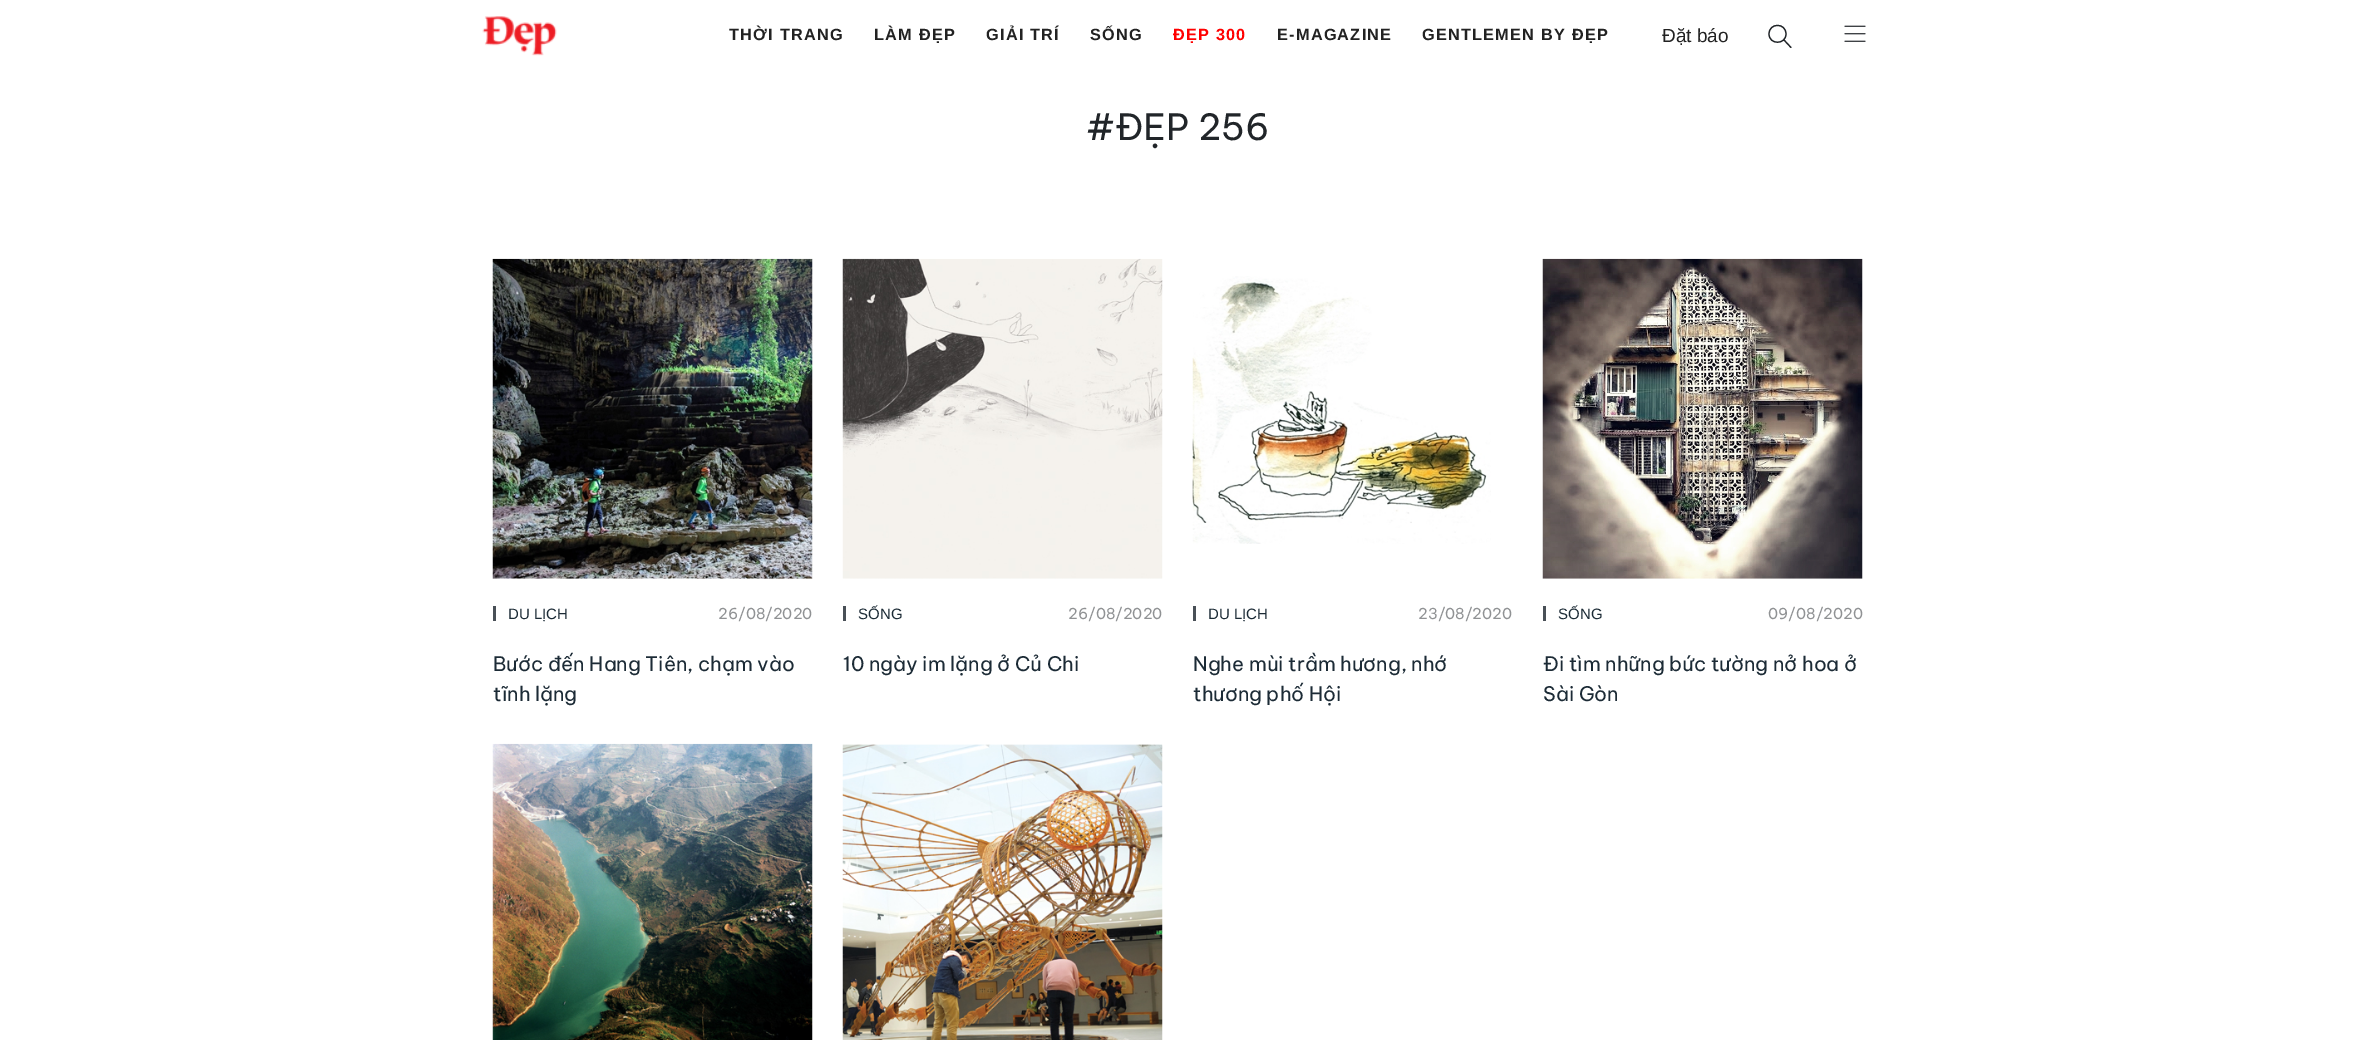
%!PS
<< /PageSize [2355 1040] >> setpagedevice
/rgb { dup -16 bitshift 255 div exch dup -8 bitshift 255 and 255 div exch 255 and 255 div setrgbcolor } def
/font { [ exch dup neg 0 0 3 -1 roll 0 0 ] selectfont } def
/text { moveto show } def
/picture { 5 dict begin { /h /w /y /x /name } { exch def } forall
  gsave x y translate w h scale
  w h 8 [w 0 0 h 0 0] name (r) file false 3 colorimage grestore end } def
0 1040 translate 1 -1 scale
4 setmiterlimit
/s1 { /LiberationSans-Regular 19 font 16#222222 rgb } def
/s2 { /BeVietnamPro-Regular 36 font 16#212529 rgb } def
/s3 { /LiberationSans-Regular 15 font 16#1C2B36 rgb } def
/s4 { /BeVietnamPro-Regular 15 font 16#909294 rgb } def
/s5 { /BeVietnamPro-Regular 20 font 16#1C2B36 rgb } def
16#FFFFFF rgb
0 0 2355 1040 rectfill
(pic1.raw) 482 16 75 40 picture
/LiberationSans-Bold 16.25 font
16#222222 rgb
729 40 moveto 1.25 0 (THỜI TRANG) ashow
874 40 moveto 1.25 0 (LÀM ĐẸP) ashow
986 40 moveto 1.25 0 (GIẢI TRÍ) ashow
1090 40 moveto 1.25 0 (SỐNG) ashow
16#FF0000 rgb
1173 40 moveto 1.25 0 (ĐẸP 300) ashow
16#222222 rgb
1277 40 moveto 1.25 0 (E-MAGAZINE) ashow
1422 40 moveto 1.25 0 (GENTLEMEN BY ĐẸP) ashow
s1
(Đặt báo) 1662 42 text
16#212529 rgb
1.2 setlinewidth
1 setlinecap
1 setlinejoin
1769 34 moveto 1769 45 1786 45 1786 34 curveto 1786 22.5 1769 22.5 1769 34 curveto 1791 47.5 moveto 1784 40 lineto stroke
(pic2.raw) 1844 25 22 17 picture
s2
(#ĐẸP 256) 1086 140 text
(pic3.raw) 492 258 321 321 picture
16#495057 rgb
493 606 3 15 rectfill
s3
(DU LỊCH) 508 619 text
s4
(26/08/2020) 718 619 text
s5
(Bước đến Hang Tiên, chạm vào) 493 671 text
(tĩnh lặng) 493 701 text
(pic4.raw) 842 258 321 321 picture
16#495057 rgb
843 606 3 15 rectfill
s3
(SỐNG) 858 619 text
s4
(26/08/2020) 1068 619 text
s5
(10 ngày im lặng ở Củ Chi) 843 671 text
(pic5.raw) 1192 276 299 268 picture
16#495057 rgb
1193 606 3 15 rectfill
s3
(DU LỊCH) 1208 619 text
s4
(23/08/2020) 1418 619 text
s5
(Nghe mùi trầm hương, nhớ) 1193 671 text
(thương phố Hội) 1193 701 text
(pic6.raw) 1542 258 321 321 picture
16#495057 rgb
1543 606 3 15 rectfill
s3
(SỐNG) 1558 619 text
s4
(09/08/2020) 1768 619 text
s5
(Đi tìm những bức tường nở hoa ở) 1543 671 text
(Sài Gòn) 1543 701 text
(pic7.raw) 492 743 321 297 picture
(pic8.raw) 842 744 321 296 picture
showpage
